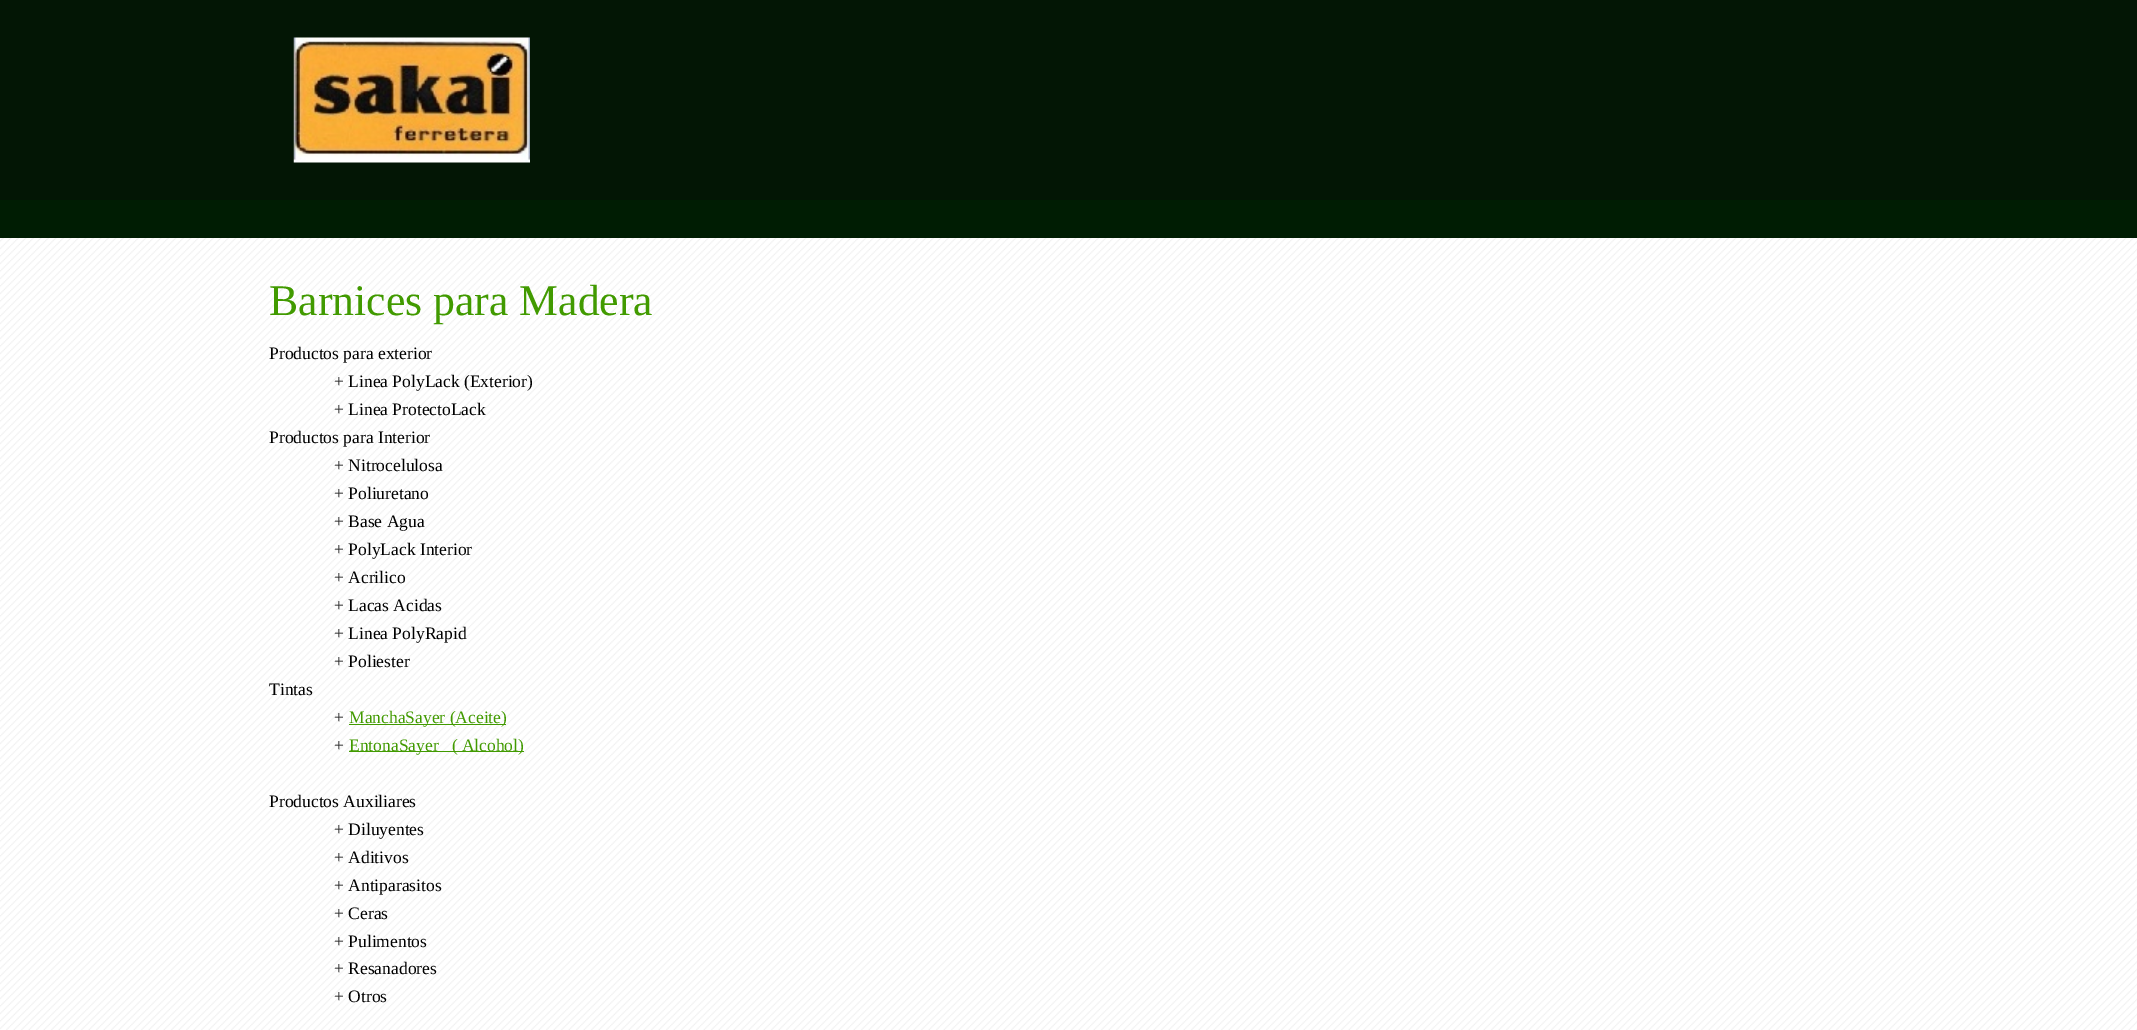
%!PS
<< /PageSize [2137 1030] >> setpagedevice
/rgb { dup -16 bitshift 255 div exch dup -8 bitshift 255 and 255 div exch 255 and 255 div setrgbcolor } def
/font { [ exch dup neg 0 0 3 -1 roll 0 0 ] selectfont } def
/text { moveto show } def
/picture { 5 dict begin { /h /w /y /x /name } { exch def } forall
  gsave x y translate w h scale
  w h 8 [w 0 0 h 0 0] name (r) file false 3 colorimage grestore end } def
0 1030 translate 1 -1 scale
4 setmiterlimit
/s1 { /LiberationSerif-Regular 43.75 font 16#419A00 rgb } def
/s2 { /LiberationSerif-Regular 17.5 font 16#000000 rgb } def
/s3 { /LiberationSerif-Regular 17.5 font 16#419A00 rgb } def
16#FFFFFF rgb
0 0 2137 1030 rectfill
(pic1.raw) 0 238 2137 792 picture
16#031605 rgb
0 0 2137 200 rectfill
(pic2.raw) 293 37 237 126 picture
16#001D03 rgb
0 200 2137 38 rectfill
s1
(Barnices para Madera) 269 315 text
s2
(Productos para exterior) 269 359 text
(+ Linea PolyLack \(Exterior\)) 334 387 text
(+ Linea ProtectoLack) 334 415 text
(Productos para Interior) 269 443 text
(+ Nitrocelulosa) 334 471 text
(+ Poliuretano) 334 499 text
(+ Base Agua) 334 527 text
(+ PolyLack Interior) 334 555 text
(+ Acrilico) 334 583 text
(+ Lacas Acidas) 334 611 text
(+ Linea PolyRapid) 334 639 text
(+ Poliester) 334 667 text
(Tintas) 269 695 text
(+) 334 723 text
16#419A00 rgb
349 724 157 1 rectfill
(ManchaSayer \(Aceite\)) 349 723 text
s2
(+) 334 751 text
16#419A00 rgb
349 751 175 1 rectfill
(EntonaSayer   \( Alcohol\)) 349 751 text
s2
(Productos Auxiliares) 269 807 text
(+ Diluyentes) 334 835 text
(+ Aditivos) 334 863 text
(+ Antiparasitos) 334 891 text
(+ Ceras) 334 919 text
(+ Pulimentos) 334 947 text
(+ Resanadores) 334 974 text
(+ Otros) 334 1002 text
showpage
